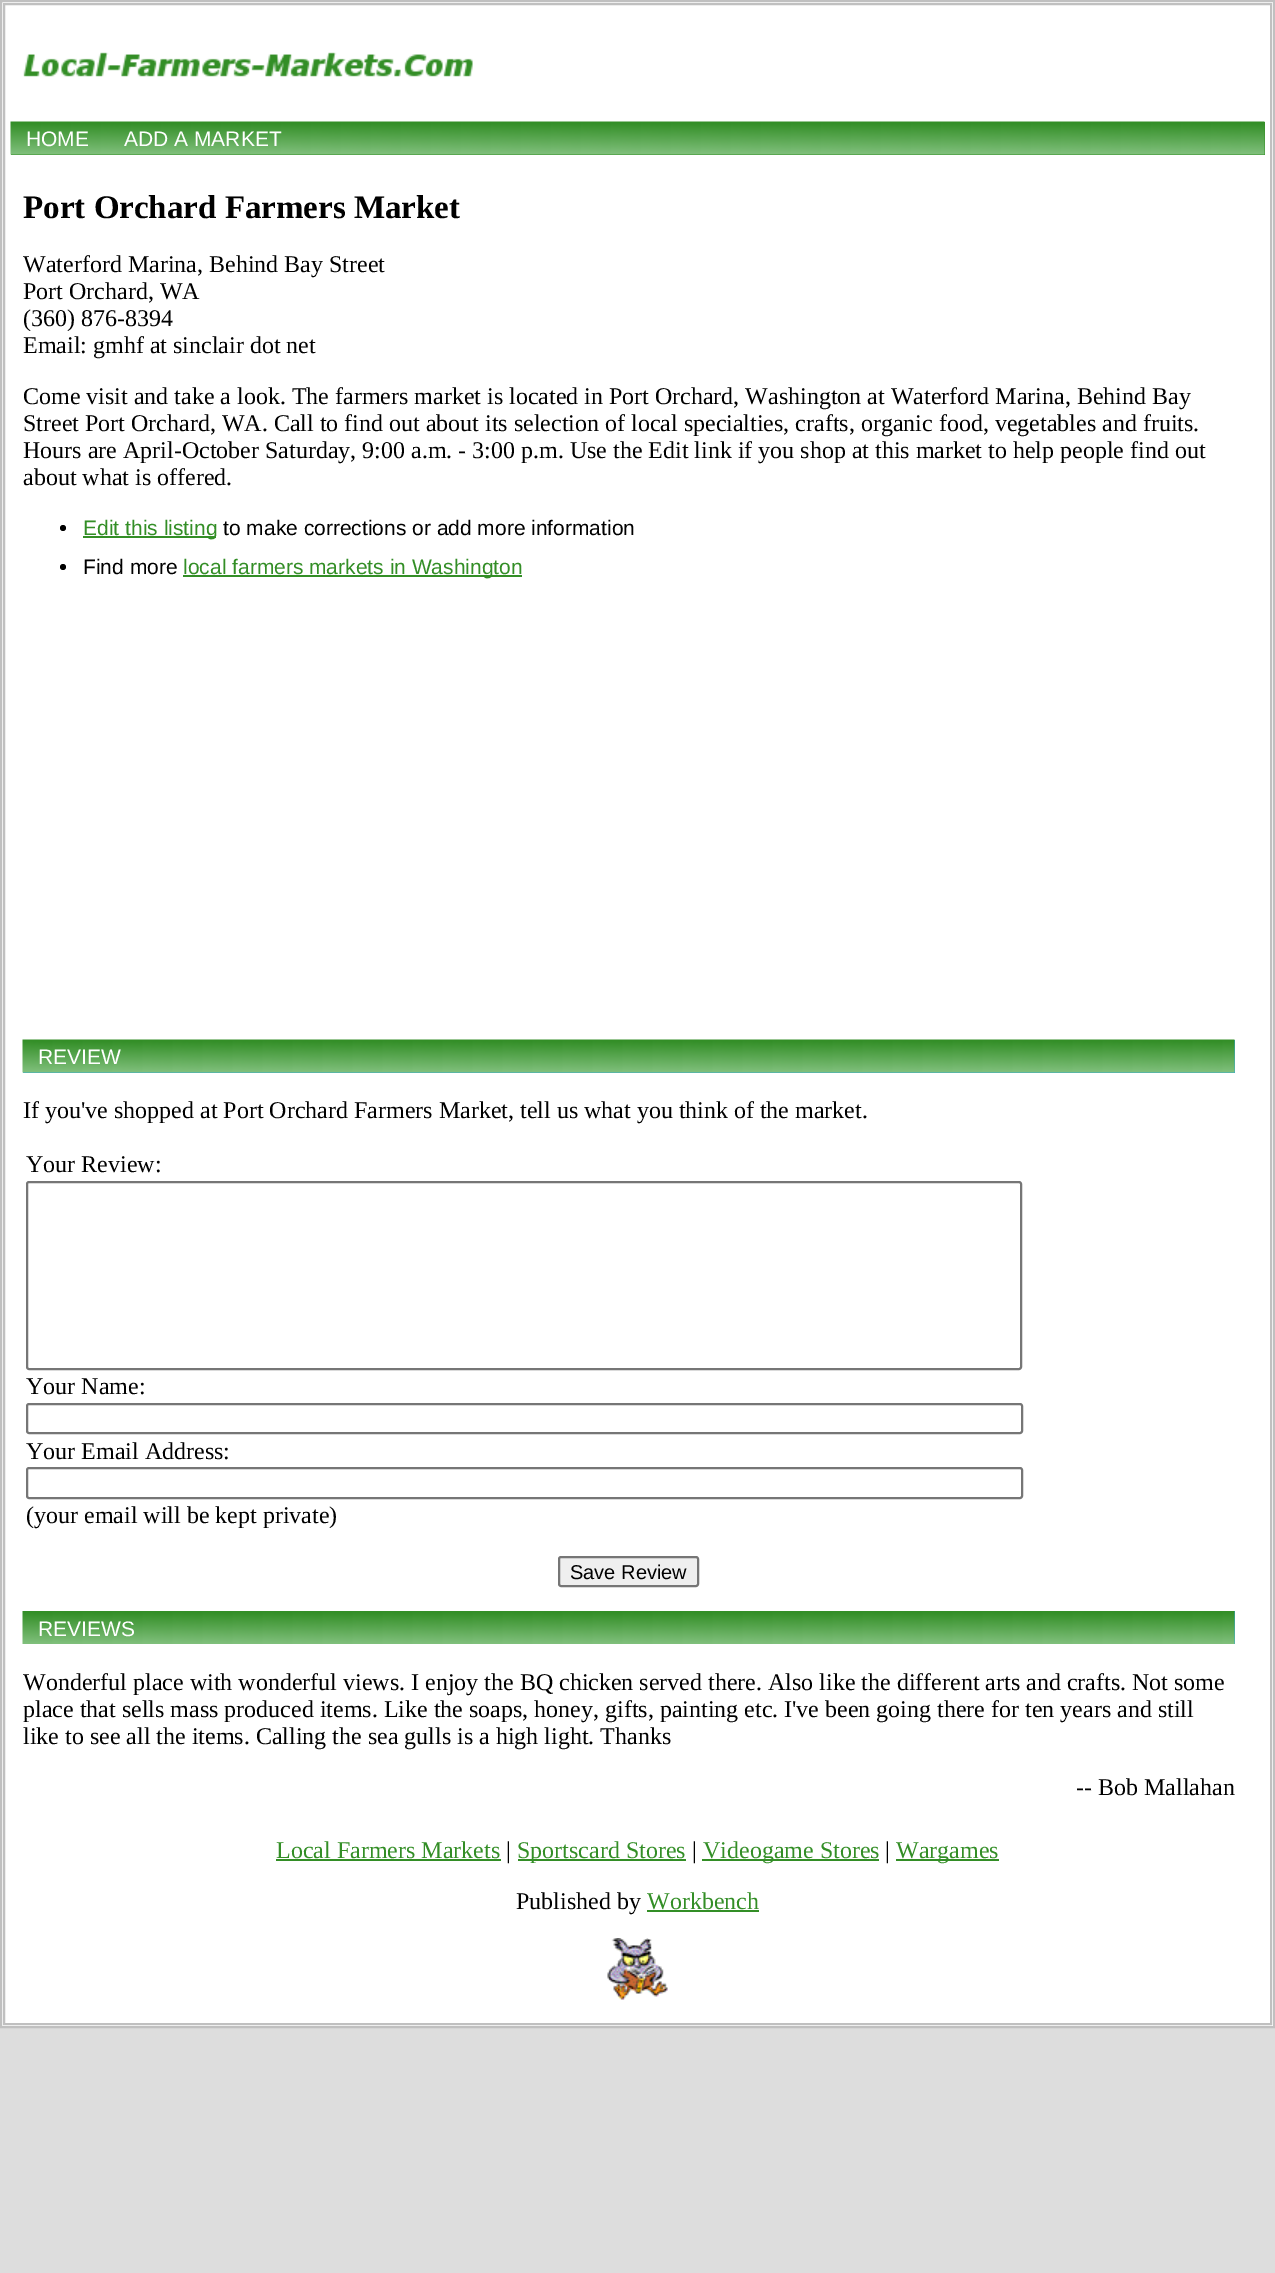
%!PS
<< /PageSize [1275 2273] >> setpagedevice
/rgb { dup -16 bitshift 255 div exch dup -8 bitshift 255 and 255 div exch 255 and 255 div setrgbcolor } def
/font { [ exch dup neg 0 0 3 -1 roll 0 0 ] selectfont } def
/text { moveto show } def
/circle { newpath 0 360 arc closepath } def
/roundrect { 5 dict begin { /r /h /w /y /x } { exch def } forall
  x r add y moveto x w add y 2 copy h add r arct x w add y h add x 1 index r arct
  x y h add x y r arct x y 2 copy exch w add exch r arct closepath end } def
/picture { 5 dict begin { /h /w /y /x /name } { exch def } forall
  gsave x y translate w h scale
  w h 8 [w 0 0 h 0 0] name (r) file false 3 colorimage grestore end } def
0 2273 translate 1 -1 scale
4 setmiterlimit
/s1 { /LiberationSans-Regular 21 font 16#FFFFFF rgb } def
/s2 { /LiberationSerif-Bold 33 font 16#000000 rgb } def
/s3 { /LiberationSerif-Regular 24 font 16#000000 rgb } def
/s4 { /LiberationSans-Regular 21 font 16#338E26 rgb } def
/s5 { /LiberationSans-Regular 21 font 16#000000 rgb } def
/s6 { /LiberationSans-Regular 20 font 16#000000 rgb } def
/s7 { /LiberationSerif-Regular 24 font 16#338E26 rgb } def
16#DDDDDD rgb
0 0 1275 2273 rectfill
16#FFFFFF rgb
1 1 moveto 1274 1 lineto 1274 2027 lineto 1 2027 lineto closepath gsave fill grestore
16#C0C0C0 rgb
2 setlinewidth
stroke
4 4 1267 2020 rectstroke
(pic1.raw) 23 52 450 25 picture
16#338E26 rgb
11 122 1254 33 rectfill
(pic2.raw) 10 121 1255 34 picture
s1
(HOME) 26 146 text
(ADD A MARKET) 124 146 text
s2
(Port Orchard Farmers Market) 23 218 text
s3
(Waterford Marina, Behind Bay Street) 23 272 text
(Port Orchard, WA) 23 299 text
(\(360\) 876-8394) 23 326 text
(Email: gmhf at sinclair dot net) 23 353 text
(Come visit and take a look. The farmers market is located in Port Orchard, Washington at Waterford Marina, Behind Bay) 23 404 text
(Street Port Orchard, WA. Call to find out about its selection of local specialties, crafts, organic food, vegetables and fruits.) 23 431 text
(Hours are April-October Saturday, 9:00 a.m. - 3:00 p.m. Use the Edit link if you shop at this market to help people find out) 23 458 text
(about what is offered.) 23 485 text
63 528 3 circle fill
16#338E26 rgb
83 536 133 2 rectfill
s4
(Edit this listing) 83 535 text
s5
(to make corrections or add more information) 223 535 text
63 567 3 circle fill
(Find more) 83 574 text
16#338E26 rgb
183 575 339 2 rectfill
(local farmers markets in Washington) 183 574 text
16#33AACC rgb
23 1040 1212 33 rectfill
(pic3.raw) 22 1039 1213 34 picture
s1
(REVIEW) 38 1064 text
s3
(If you've shopped at Port Orchard Farmers Market, tell us what you think of the market.) 23 1118 text
(Your Review:) 26 1172 text
16#767676 rgb
27 1182 994 187 2 roundrect stroke
s3
(Your Name:) 26 1394 text
16#767676 rgb
27 1404 995 29 2 roundrect stroke
s3
(Your Email Address:) 26 1459 text
16#767676 rgb
27 1468 995 30 2 roundrect stroke
s3
(\(your email will be kept private\)) 26 1523 text
16#EFEFEF rgb
559 1557 139 29 2 roundrect gsave fill grestore
16#767676 rgb
stroke
s6
(Save Review) 570 1579 text
16#33AACC rgb
1234 1611 1 33 rectfill
(pic4.raw) 22 1611 1213 33 picture
s1
(REVIEWS) 38 1636 text
s3
(Wonderful place with wonderful views. I enjoy the BQ chicken served there. Also like the different arts and crafts. Not some) 23 1690 text
(place that sells mass produced items. Like the soaps, honey, gifts, painting etc. I've been going there for ten years and still) 23 1717 text
(like to see all the items. Calling the sea gulls is a high light. Thanks) 23 1744 text
(-- Bob Mallahan) 1076 1795 text
s7
(Local Farmers Markets) 276 1858 text
276 1859 225 2 rectfill
s3
(|) 506 1858 text
16#338E26 rgb
518 1859 168 2 rectfill
(Sportscard Stores) 517 1858 text
s3
(|) 692 1858 text
16#338E26 rgb
702 1859 177 2 rectfill
(Videogame Stores) 703 1858 text
s3
(|) 885 1858 text
16#338E26 rgb
896 1859 103 2 rectfill
(Wargames) 896 1858 text
s3
(Published by) 516 1909 text
s7
(Workbench) 647 1909 text
647 1910 112 2 rectfill
(pic5.raw) 607 1938 61 62 picture
showpage
